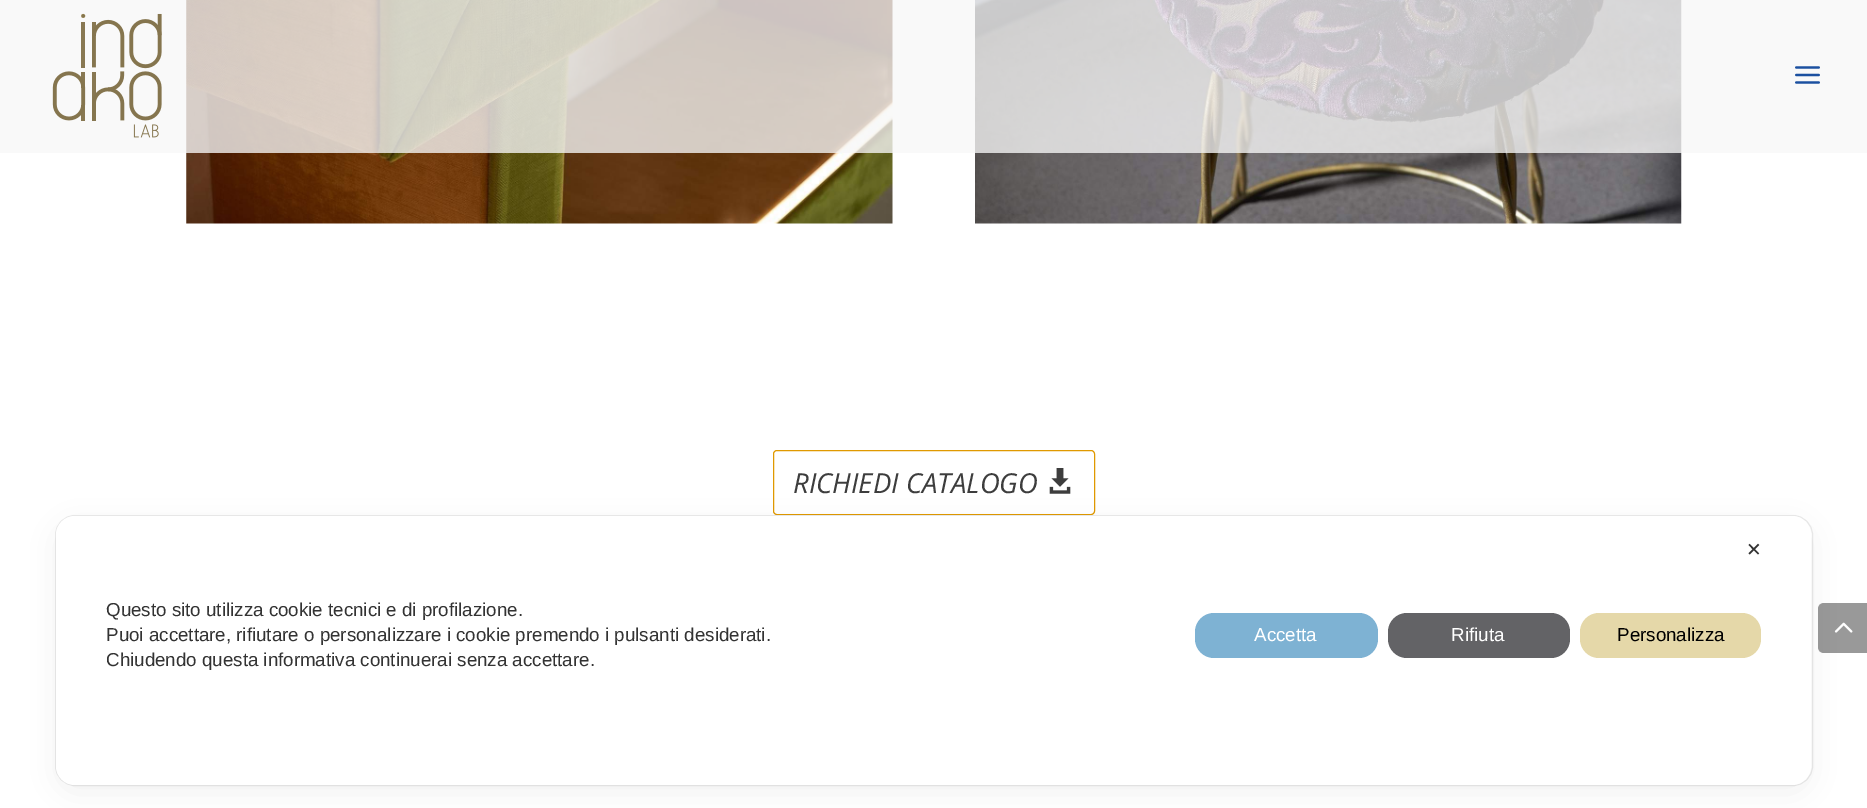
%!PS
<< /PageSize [1867 808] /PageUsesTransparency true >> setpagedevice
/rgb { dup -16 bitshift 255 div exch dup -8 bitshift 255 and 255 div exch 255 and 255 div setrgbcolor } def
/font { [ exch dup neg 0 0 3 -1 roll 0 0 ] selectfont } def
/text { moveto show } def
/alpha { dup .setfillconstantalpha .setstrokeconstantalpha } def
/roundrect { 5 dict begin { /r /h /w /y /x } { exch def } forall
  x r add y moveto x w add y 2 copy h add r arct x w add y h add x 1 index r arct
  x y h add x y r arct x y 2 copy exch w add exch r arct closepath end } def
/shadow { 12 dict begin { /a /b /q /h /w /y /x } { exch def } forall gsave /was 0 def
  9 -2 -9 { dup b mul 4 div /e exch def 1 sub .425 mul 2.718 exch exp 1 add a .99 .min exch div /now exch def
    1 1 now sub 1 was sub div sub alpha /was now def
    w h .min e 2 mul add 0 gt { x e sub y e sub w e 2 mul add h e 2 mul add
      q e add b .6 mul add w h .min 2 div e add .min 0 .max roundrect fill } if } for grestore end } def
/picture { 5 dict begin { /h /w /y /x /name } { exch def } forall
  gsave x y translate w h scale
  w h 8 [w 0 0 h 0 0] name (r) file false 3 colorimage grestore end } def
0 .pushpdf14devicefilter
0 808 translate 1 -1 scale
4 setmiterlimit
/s1 { /OpenSans-Italic 27.5 font 16#3D3D3D rgb } def
/s2 { /DejaVuSans-Regular 18.75 font 16#333333 rgb } def
/s3 { /LiberationSans-Regular 18.75 font 16#333333 rgb } def
/s4 { /LiberationSans-Regular 18.75 font 16#FFFFFF rgb } def
/s5 { /LiberationSans-Regular 18.75 font 16#000000 rgb } def
16#FFFFFF rgb
0 0 1867 808 rectfill
(pic3.raw) 186 0 707 224 picture
(pic4.raw) 975 0 707 224 picture
0.78 alpha
16#F7F7F7 rgb
0 0 1867 153 rectfill
1 alpha
(pic1.raw) 52 13 110 125 picture
(pic2.raw) 1795 66 25 18 picture
16#E09900 rgb
773.5 450.5 321 64 3.5 roundrect stroke
s1
(RICHIEDI CATALOGO) 793 493 text
(pic5.raw) 1049 468 22 26 picture
16#999999 rgb
1824 603 moveto 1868 603 lineto 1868 653 lineto 1824 653 lineto 1820.5 653 1818 650.5 1818 647 curveto 1818 609 lineto 1818 605.5 1820.5 603 1824 603 curveto closepath fill
(pic6.raw) 1834 622 19 11 picture
16#EBEBEB rgb
55.5 515.5 1757 270 19.5 roundrect stroke
16#000000 rgb
56 524 1755 269 19 15 0.05 shadow
16#FFFFFF rgb
56 516 1755 269 19 roundrect fill
s2
(✕) 1746 556 text
s3
(Questo sito utilizza cookie tecnici e di profilazione.) 106 616 text
(Puoi accettare, rifiutare o personalizzare i cookie premendo i pulsanti desiderati.) 106 641 text
(Chiudendo questa informativa continuerai senza accettare.) 106 666 text
16#7EB2D3 rgb
1195 613 183 45 19 roundrect fill
s4
(Accetta) 1254 641 text
16#636366 rgb
1388 613 182 45 19 roundrect fill
s4
(Rifiuta) 1451 641 text
16#E5D8A9 rgb
1580 613 181 45 19 roundrect fill
s5
(Personalizza) 1617 641 text
.poppdf14devicefilter showpage
